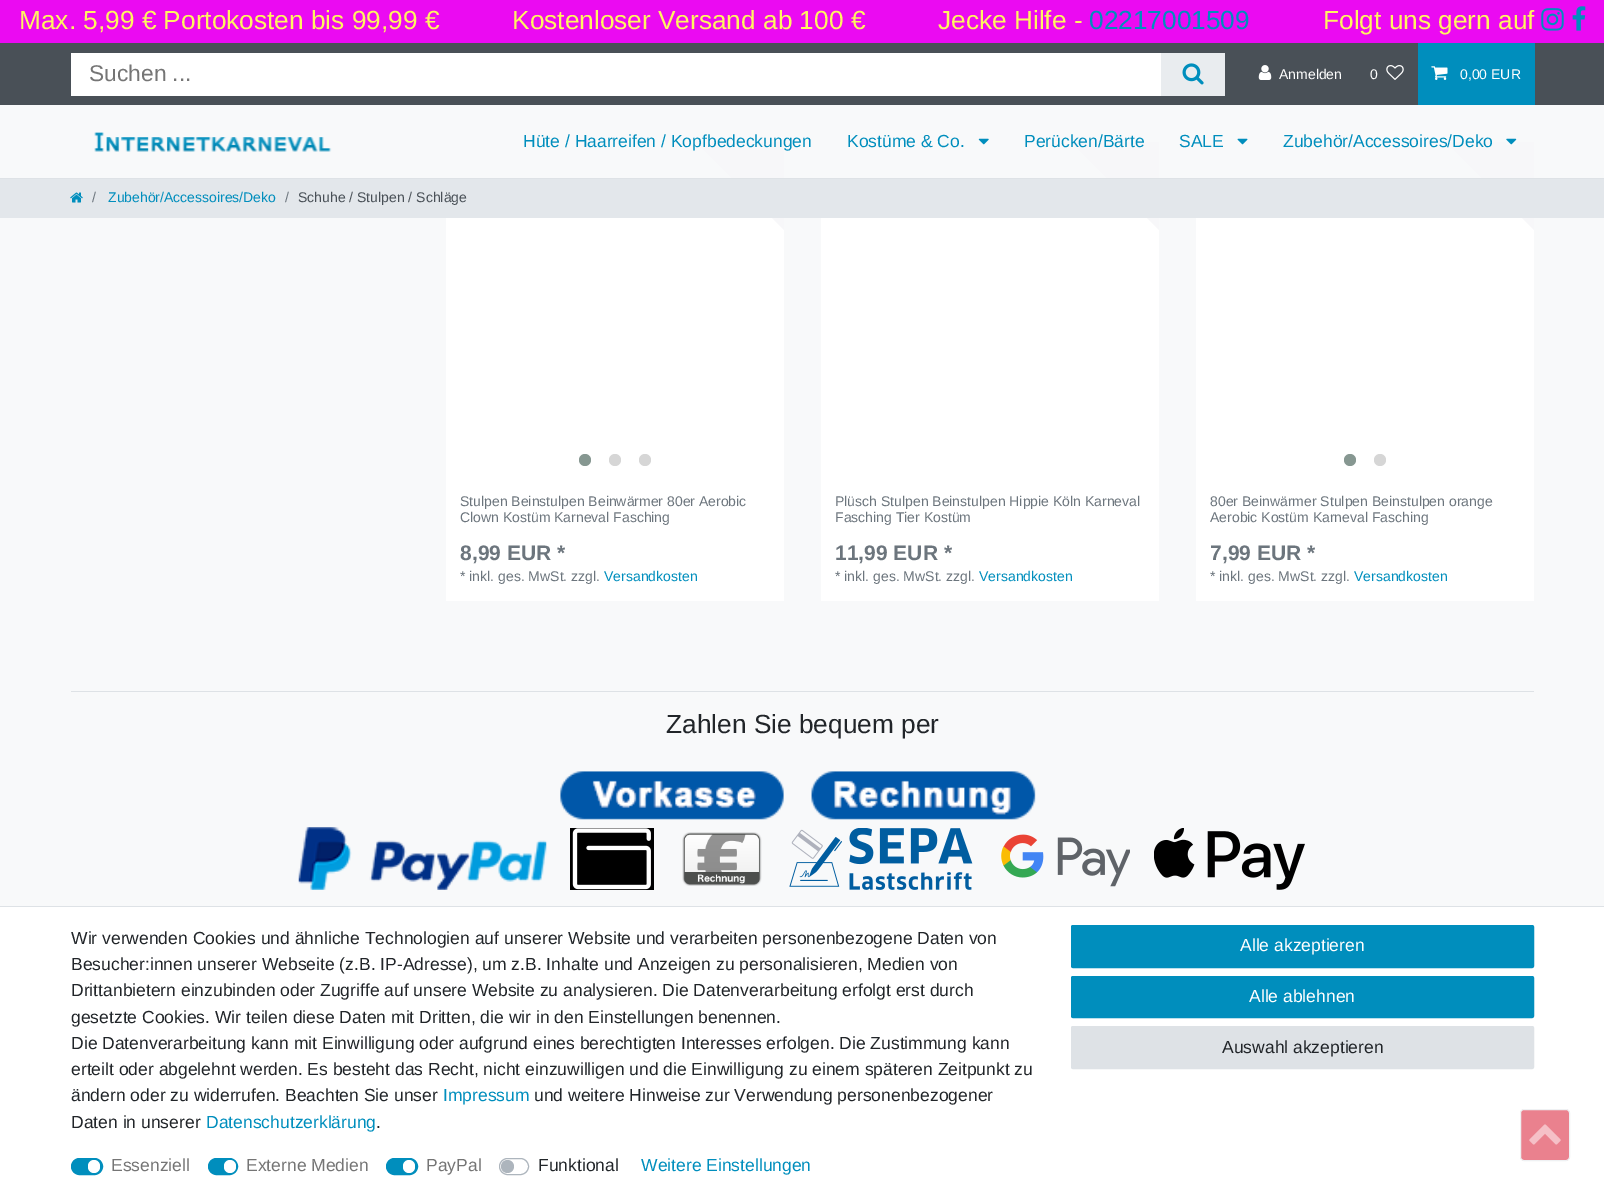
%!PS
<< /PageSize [1604 1196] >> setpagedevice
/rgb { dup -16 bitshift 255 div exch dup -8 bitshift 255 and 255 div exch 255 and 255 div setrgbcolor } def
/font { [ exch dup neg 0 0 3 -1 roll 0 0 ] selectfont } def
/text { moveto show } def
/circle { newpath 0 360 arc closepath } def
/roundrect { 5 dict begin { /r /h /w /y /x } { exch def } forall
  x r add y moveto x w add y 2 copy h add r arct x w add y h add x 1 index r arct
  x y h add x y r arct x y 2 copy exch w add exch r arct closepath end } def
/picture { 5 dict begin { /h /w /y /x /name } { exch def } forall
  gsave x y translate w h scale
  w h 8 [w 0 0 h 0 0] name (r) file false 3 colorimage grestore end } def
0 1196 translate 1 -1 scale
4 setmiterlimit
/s1 { /LiberationSans-Regular 26.25 font 16#FFF560 rgb } def
/s2 { /LiberationSans-Regular 26.25 font 16#008EBD rgb } def
/s3 { /LiberationSans-Regular 22.75 font 16#757575 rgb } def
/s4 { /LiberationSans-Regular 14 font 16#FFFFFF rgb } def
/s5 { /LiberationSans-Regular 17.5 font 16#008EBD rgb } def
/s6 { /LiberationSans-Regular 14 font 16#6C757D rgb } def
/s7 { /LiberationSans-Regular 14 font 16#008EBD rgb } def
/s8 { /LiberationSans-Regular 14 font 16#495057 rgb } def
/s9 { /LiberationSans-Bold 21 font 16#6C757D rgb } def
/s10 { /LiberationSans-Regular 26.25 font 16#212529 rgb } def
/s11 { /LiberationSans-Regular 17.5 font 16#212529 rgb } def
/s12 { /LiberationSans-Regular 17.5 font 16#757575 rgb } def
/s13 { /LiberationSans-Regular 17.5 font 16#FFFFFF rgb } def
16#F8F9FA rgb
0 0 1604 1196 rectfill
16#EB0AF2 rgb
0 0 1604 43 rectfill
s1
(Max. 5,99 € Portokosten bis 99,99 €) 19 29 text
(Kostenloser Versand ab 100 €) 512 29 text
(Jecke Hilfe -) 938 29 text
s2
(02217001509) 1089 29 text
s1
(Folgt uns gern auf) 1323 29 text
(pic1.raw) 1541 8 23 23 picture
(pic2.raw) 1572 6 14 25 picture
16#495057 rgb
0 43 1604 62 rectfill
16#FFFFFF rgb
71 53 1090 43 rectfill
s3
(Suchen ...) 89 81 text
16#E9ECEF rgb
1161 53 64 43 rectfill
(pic3.raw) 1182 63 22 22 picture
(pic4.raw) 1258 65 14 15 picture
s4
(Anmelden) 1279 79 text
(0) 1370 79 text
(pic5.raw) 1386 65 18 15 picture
16#008EBD rgb
1418 43 117 62 rectfill
(pic6.raw) 1431 66 17 14 picture
s4
(0,00 EUR) 1460 79 text
446 218 338 383 rectfill
16#F7F7F9 rgb
784 142 moveto 784 230 lineto 696 142 lineto closepath fill
16#FFFFFF rgb
821 218 338 383 rectfill
16#F7F7F9 rgb
1159 142 moveto 1159 230 lineto 1071 142 lineto closepath fill
16#FFFFFF rgb
1196 218 338 383 rectfill
16#F7F7F9 rgb
1534 142 moveto 1534 230 lineto 1446 142 lineto closepath fill
16#DEE2E6 rgb
0 178 1604 1 rectfill
(pic7.raw) 94 132 238 20 picture
s5
(Hüte / Haarreifen / Kopfbedeckungen) 523 147 text
(Kostüme & Co.) 847 147 text
(pic8.raw) 978 138 11 7 picture
(Perücken/Bärte) 1024 147 text
(SALE) 1179 147 text
(pic9.raw) 1237 138 11 7 picture
(Zubehör/Accessoires/Deko) 1283 147 text
(pic10.raw) 1506 138 11 7 picture
16#E3E7EB rgb
0 179 1604 39 rectfill
(pic11.raw) 70 192 13 11 picture
s6
(/) 92 202 text
s7
(Zubehör/Accessoires/Deko) 108 202 text
s6
(/) 285 202 text
s8
(Schuhe / Stulpen / Schläge) 298 202 text
16#869791 rgb
585 460 6 circle fill
16#D6D6D6 rgb
615 460 6 circle fill
645 460 6 circle fill
s6
(Stulpen Beinstulpen Beinwärmer 80er Aerobic) 460 506 text
(Clown Kostüm Karneval Fasching) 460 522 text
s9
(8,99 EUR *) 460 560 text
s6
(* inkl. ges. MwSt. zzgl.) 460 581 text
s7
(Versandkosten) 604 581 text
s6
(Plüsch Stulpen Beinstulpen Hippie Köln Karneval) 835 506 text
(Fasching Tier Kostüm) 835 522 text
s9
(11,99 EUR *) 835 560 text
s6
(* inkl. ges. MwSt. zzgl.) 835 581 text
s7
(Versandkosten) 979 581 text
16#869791 rgb
1350 460 6 circle fill
16#D6D6D6 rgb
1380 460 6 circle fill
s6
(80er Beinwärmer Stulpen Beinstulpen orange) 1210 506 text
(Aerobic Kostüm Karneval Fasching) 1210 522 text
s9
(7,99 EUR *) 1210 560 text
s6
(* inkl. ges. MwSt. zzgl.) 1210 581 text
s7
(Versandkosten) 1354 581 text
16#DEE2E6 rgb
71 691 1463 1 rectfill
s10
(Zahlen Sie bequem per) 666 733 text
(pic12.raw) 560 771 224 49 picture
(pic13.raw) 811 771 225 49 picture
(pic14.raw) 298 827 249 63 picture
(pic15.raw) 570 828 84 62 picture
(pic16.raw) 682 832 80 54 picture
(pic17.raw) 789 828 184 62 picture
(pic18.raw) 1001 834 129 53 picture
(pic19.raw) 1154 828 151 62 picture
16#FFFFFF rgb
0 907 1604 289 rectfill
16#DEE2E6 rgb
0 906 1604 1 rectfill
s11
(Wir verwenden Cookies und ähnliche Technologien auf unserer Website und verarbeiten personenbezogene Daten von) 71 944 text
(Besucher:innen unserer Webseite \(z.B. IP-Adresse\), um z.B. Inhalte und Anzeigen zu personalisieren, Medien von) 71 970 text
(Drittanbietern einzubinden oder Zugriffe auf unsere Website zu analysieren. Die Datenverarbeitung erfolgt erst durch) 71 996 text
(gesetzte Cookies. Wir teilen diese Daten mit Dritten, die wir in den Einstellungen benennen.) 71 1023 text
(Die Datenverarbeitung kann mit Einwilligung oder aufgrund eines berechtigten Interesses erfolgen. Die Zustimmung kann) 71 1049 text
(erteilt oder abgelehnt werden. Es besteht das Recht, nicht einzuwilligen und die Einwilligung zu einem späteren Zeitpunkt zu) 71 1075 text
(ändern oder zu widerrufen. Beachten Sie unser) 71 1101 text
s5
(Impressum) 443 1101 text
s11
(und weitere Hinweise zur Verwendung personenbezogener) 534 1101 text
(Daten in unserer) 71 1128 text
s5
(Datenschutzerklärung) 206 1128 text
s11
(.) 376 1128 text
16#008EBD rgb
71.5 1158.5 31 16 8 roundrect gsave fill grestore
stroke
s12
(Essenziell) 111 1171 text
16#FFFFFF rgb
88 1160 12 13 6 roundrect fill
16#008EBD rgb
208.5 1158.5 29 16 8 roundrect gsave fill grestore
stroke
s12
(Externe Medien) 246 1171 text
16#FFFFFF rgb
224 1160 12 13 6 roundrect fill
16#008EBD rgb
386.5 1158.5 31 16 8 roundrect gsave fill grestore
stroke
s12
(PayPal) 426 1171 text
16#FFFFFF rgb
403 1160 12 13 6 roundrect fill
16#ADB5BD rgb
499.5 1158.5 29 16 8 roundrect stroke
s11
(Funktional) 538 1171 text
16#ADB5BD rgb
507.5 1166.5 6.5 circle fill
s5
(Weitere Einstellungen) 641 1171 text
1071.5 925.5 462 42 1.5 roundrect gsave fill grestore
stroke
s13
(Alle akzeptieren) 1240 951 text
16#008EBD rgb
1071.5 976.5 462 41 1.5 roundrect gsave fill grestore
stroke
s13
(Alle ablehnen) 1249 1002 text
16#DEE2E6 rgb
1071.5 1026.5 462 42 1.5 roundrect gsave fill grestore
stroke
s11
(Auswahl akzeptieren) 1222 1053 text
16#EA818E rgb
1520.5 1109.5 49 51 3.5 roundrect gsave fill grestore
16#EFF1F3 rgb
stroke
(pic20.raw) 1529 1124 32 21 picture
showpage
